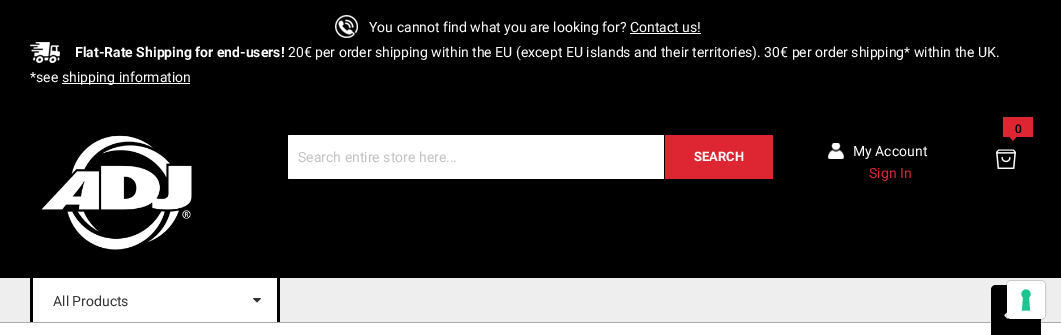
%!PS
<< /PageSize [1061 335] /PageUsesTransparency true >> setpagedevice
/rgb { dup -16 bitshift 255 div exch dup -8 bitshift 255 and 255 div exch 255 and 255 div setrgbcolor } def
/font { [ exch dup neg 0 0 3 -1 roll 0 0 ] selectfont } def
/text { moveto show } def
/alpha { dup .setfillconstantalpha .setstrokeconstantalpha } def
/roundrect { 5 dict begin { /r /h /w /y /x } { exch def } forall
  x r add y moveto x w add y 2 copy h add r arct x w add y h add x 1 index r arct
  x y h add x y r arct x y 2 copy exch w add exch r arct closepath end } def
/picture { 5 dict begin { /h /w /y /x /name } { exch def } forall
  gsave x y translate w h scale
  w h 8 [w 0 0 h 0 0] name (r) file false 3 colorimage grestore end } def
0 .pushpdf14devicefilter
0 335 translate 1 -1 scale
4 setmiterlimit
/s1 { /Roboto-Regular 14 font 16#FFFFFF rgb } def
/s2 { /Roboto-Bold 14 font 16#FFFFFF rgb } def
/s3 { /Roboto-Regular 14 font 16#C2C2C2 rgb } def
/s4 { /Roboto-Bold 13 font 16#FFFFFF rgb } def
/s5 { /Roboto-Medium 12 font 16#000000 rgb } def
/s6 { /Roboto-Regular 14 font 16#DD2632 rgb } def
/s7 { /Roboto-Regular 14 font 16#333333 rgb } def
16#FFFFFF rgb
0 0 1061 335 rectfill
16#000000 rgb
0 0 1061 278 rectfill
(pic1.raw) 335 15 23 23 picture
s1
(You cannot find what you are looking for? Contact us!) 369 32 text
630 33 71 1 rectfill
(pic2.raw) 30 42 30 21 picture
s2
(Flat-Rate Shipping for end-users!) 75 57 text
s1
(20€ per order shipping within the EU \(except EU islands and their territories\). 30€ per order shipping* within the UK.) 288 57 text
(*see) 30 82 text
62 83 128 1 rectfill
(shipping information) 62 82 text
(pic3.raw) 41 135 151 115 picture
288 135 485 44 1 roundrect fill
s3
(Search entire store here...) 298 162 text
16#DD2632 rgb
665 135 108 44 rectfill
16#000000 rgb
664 135 1 44 rectfill
s4
(SEARCH) 694 161 text
16#DD2632 rgb
1003 117 30 20 rectfill
s5
(0) 1015 133 text
16#DD2632 rgb
1009 136 moveto 1017 136 lineto 1013 141 lineto closepath fill
(pic4.raw) 996 149 20 20 picture
(pic5.raw) 828 143 16 16 picture
s1
(My Account) 853 156 text
s6
(Sign In) 869 178 text
16#EEEEEE rgb
0 278 1061 44 rectfill
16#AAAAAB rgb
0 322 1061 1 rectfill
16#FFFFFF rgb
33 278 244 44 rectfill
16#000000 rgb
277 278 3 44 rectfill
30 278 3 44 rectfill
s7
(All Products) 53 306 text
(pic6.raw) 253 298 8 5 picture
16#000000 rgb
996 285 moveto 1036 285 lineto 1039 285 1041 287 1041 290 curveto 1041 335 lineto 991 335 lineto 991 290 lineto 991 287 993 285 996 285 curveto closepath fill
(pic7.raw) 1004 312 5 7 picture
0.15 alpha
1006.5 280.5 39 39 4.5 roundrect stroke
1 alpha
16#FFFFFF rgb
1007 281 38 38 4 roundrect fill
(pic8.raw) 1021 289 10 22 picture
.poppdf14devicefilter showpage
